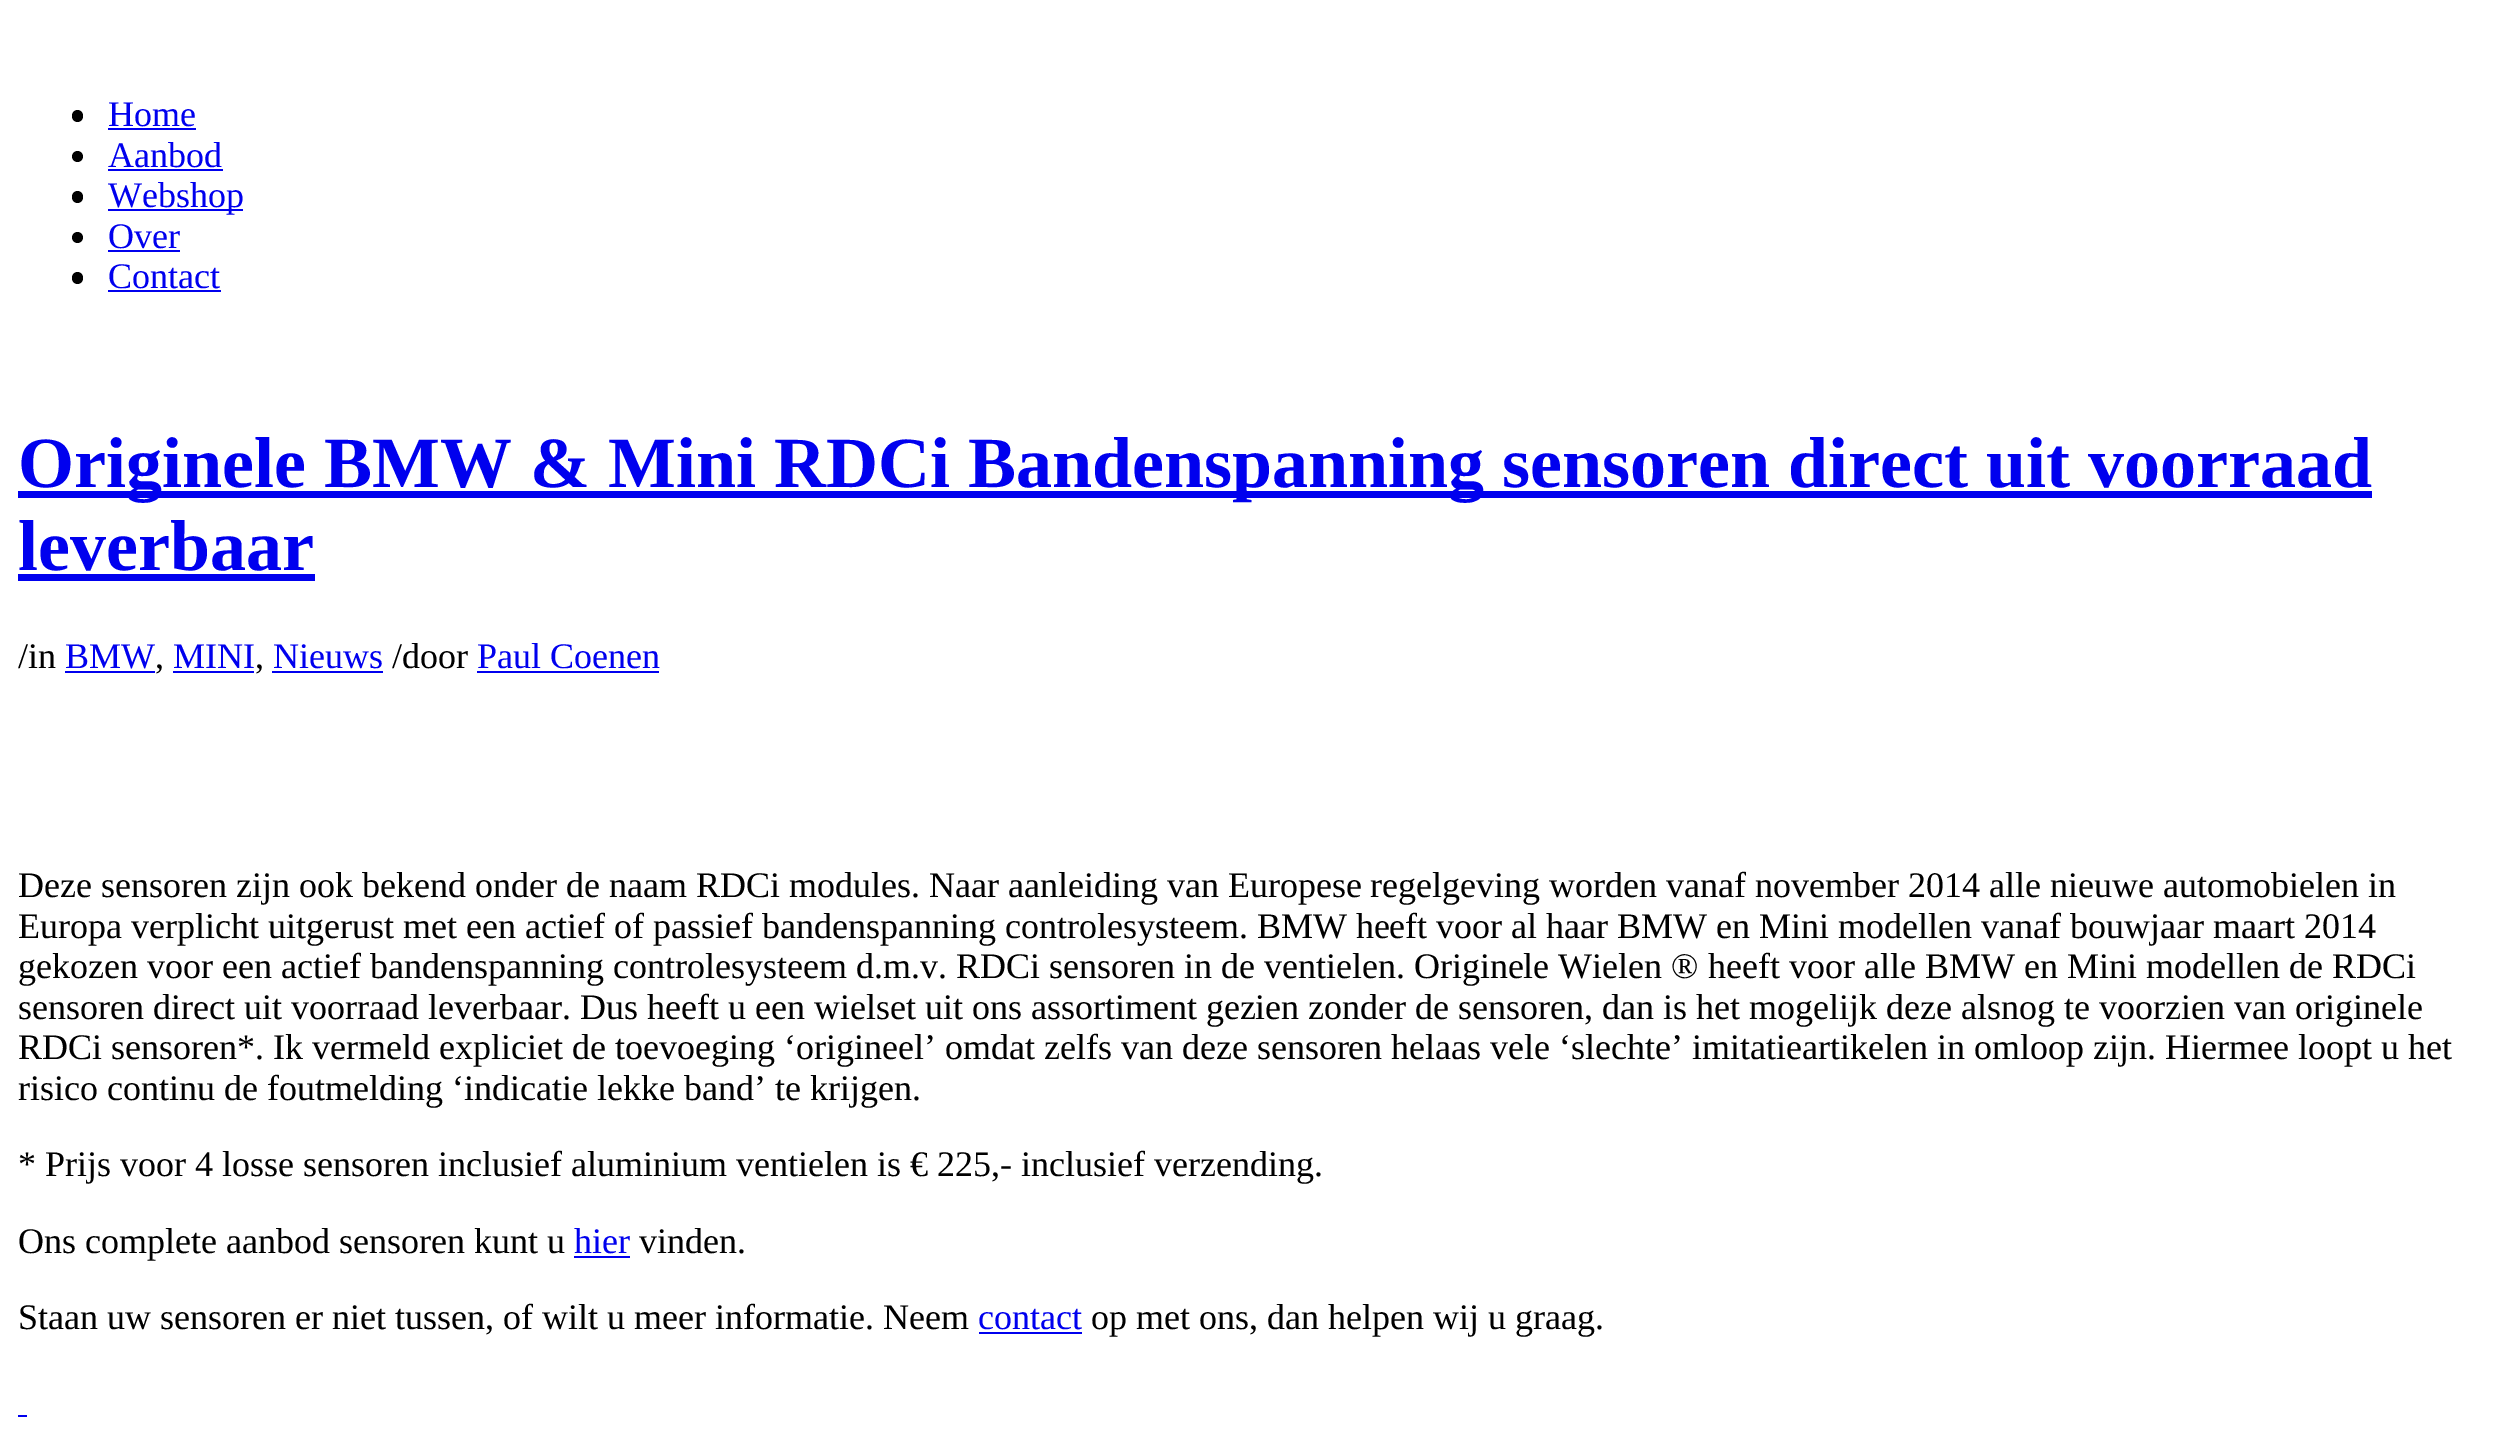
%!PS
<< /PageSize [2510 1433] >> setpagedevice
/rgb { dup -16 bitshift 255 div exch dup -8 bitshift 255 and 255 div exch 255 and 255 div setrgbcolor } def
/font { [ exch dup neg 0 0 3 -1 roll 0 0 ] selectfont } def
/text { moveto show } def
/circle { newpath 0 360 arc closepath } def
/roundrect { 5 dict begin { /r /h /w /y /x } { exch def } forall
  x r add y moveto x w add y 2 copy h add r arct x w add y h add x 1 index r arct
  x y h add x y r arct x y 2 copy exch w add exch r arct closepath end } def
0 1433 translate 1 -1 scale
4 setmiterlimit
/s1 { /LiberationSerif-Regular 36 font 16#0000EE rgb } def
/s2 { /LiberationSerif-Bold 72 font 16#0000EE rgb } def
/s3 { /LiberationSerif-Regular 36 font 16#000000 rgb } def
16#FFFFFF rgb
0 0 2510 1433 rectfill
16#000000 rgb
72 110 11 12 5.5 roundrect fill
s1
(Home) 108 126 text
108 128 88 2 rectfill
16#000000 rgb
77.5 156.5 5.5 circle fill
s1
(Aanbod) 108 167 text
108 169 115 2 rectfill
16#000000 rgb
72 191 11 12 5.5 roundrect fill
16#0000EE rgb
108 209 135 2 rectfill
(Webshop) 108 207 text
16#000000 rgb
77.5 237.5 5.5 circle fill
s1
(Over) 108 248 text
108 250 72 2 rectfill
16#000000 rgb
72 272 11 12 5.5 roundrect fill
s1
(Contact) 108 288 text
108 290 113 2 rectfill
18 491 2354 7 rectfill
s2
(Originele BMW & Mini RDCi Bandenspanning sensoren direct uit voorraad) 18 487 text
(leverbaar) 18 570 text
18 574 297 7 rectfill
s3
(/in) 18 668 text
s1
(BMW) 65 668 text
s3
(,) 155 668 text
16#0000EE rgb
65 671 90 2 rectfill
(MINI) 173 668 text
s3
(,) 255 668 text
16#0000EE rgb
173 671 81 2 rectfill
272 671 111 2 rectfill
(Nieuws) 273 668 text
s3
(/door) 392 668 text
s1
(Paul Coenen) 477 668 text
477 671 182 2 rectfill
s3
(Deze sensoren zijn ook bekend onder de naam RDCi modules. Naar aanleiding van Europese regelgeving worden vanaf november 2014 alle nieuwe automobielen in) 18 897 text
(Europa verplicht uitgerust met een actief of passief bandenspanning controlesysteem. BMW heeft voor al haar BMW en Mini modellen vanaf bouwjaar maart 2014) 18 938 text
(gekozen voor een actief bandenspanning controlesysteem d.m.v. RDCi sensoren in de ventielen. Originele Wielen ® heeft voor alle BMW en Mini modellen de RDCi) 18 978 text
(sensoren direct uit voorraad leverbaar. Dus heeft u een wielset uit ons assortiment gezien zonder de sensoren, dan is het mogelijk deze alsnog te voorzien van originele) 18 1019 text
(RDCi sensoren*. Ik vermeld expliciet de toevoeging ‘origineel’ omdat zelfs van deze sensoren helaas vele ‘slechte’ imitatieartikelen in omloop zijn. Hiermee loopt u het) 18 1059 text
(risico continu de foutmelding ‘indicatie lekke band’ te krijgen.) 18 1100 text
(* Prijs voor 4 losse sensoren inclusief aluminium ventielen is € 225,- inclusief verzending.) 18 1176 text
(Ons complete aanbod sensoren kunt u) 18 1253 text
s1
(hier) 574 1253 text
574 1256 56 2 rectfill
s3
(vinden.) 639 1253 text
(Staan uw sensoren er niet tussen, of wilt u meer informatie. Neem) 18 1329 text
s1
(contact) 978 1329 text
979 1332 103 2 rectfill
s3
(op met ons, dan helpen wij u graag.) 1091 1329 text
16#0000EE rgb
18 1415 9 2 rectfill
showpage
